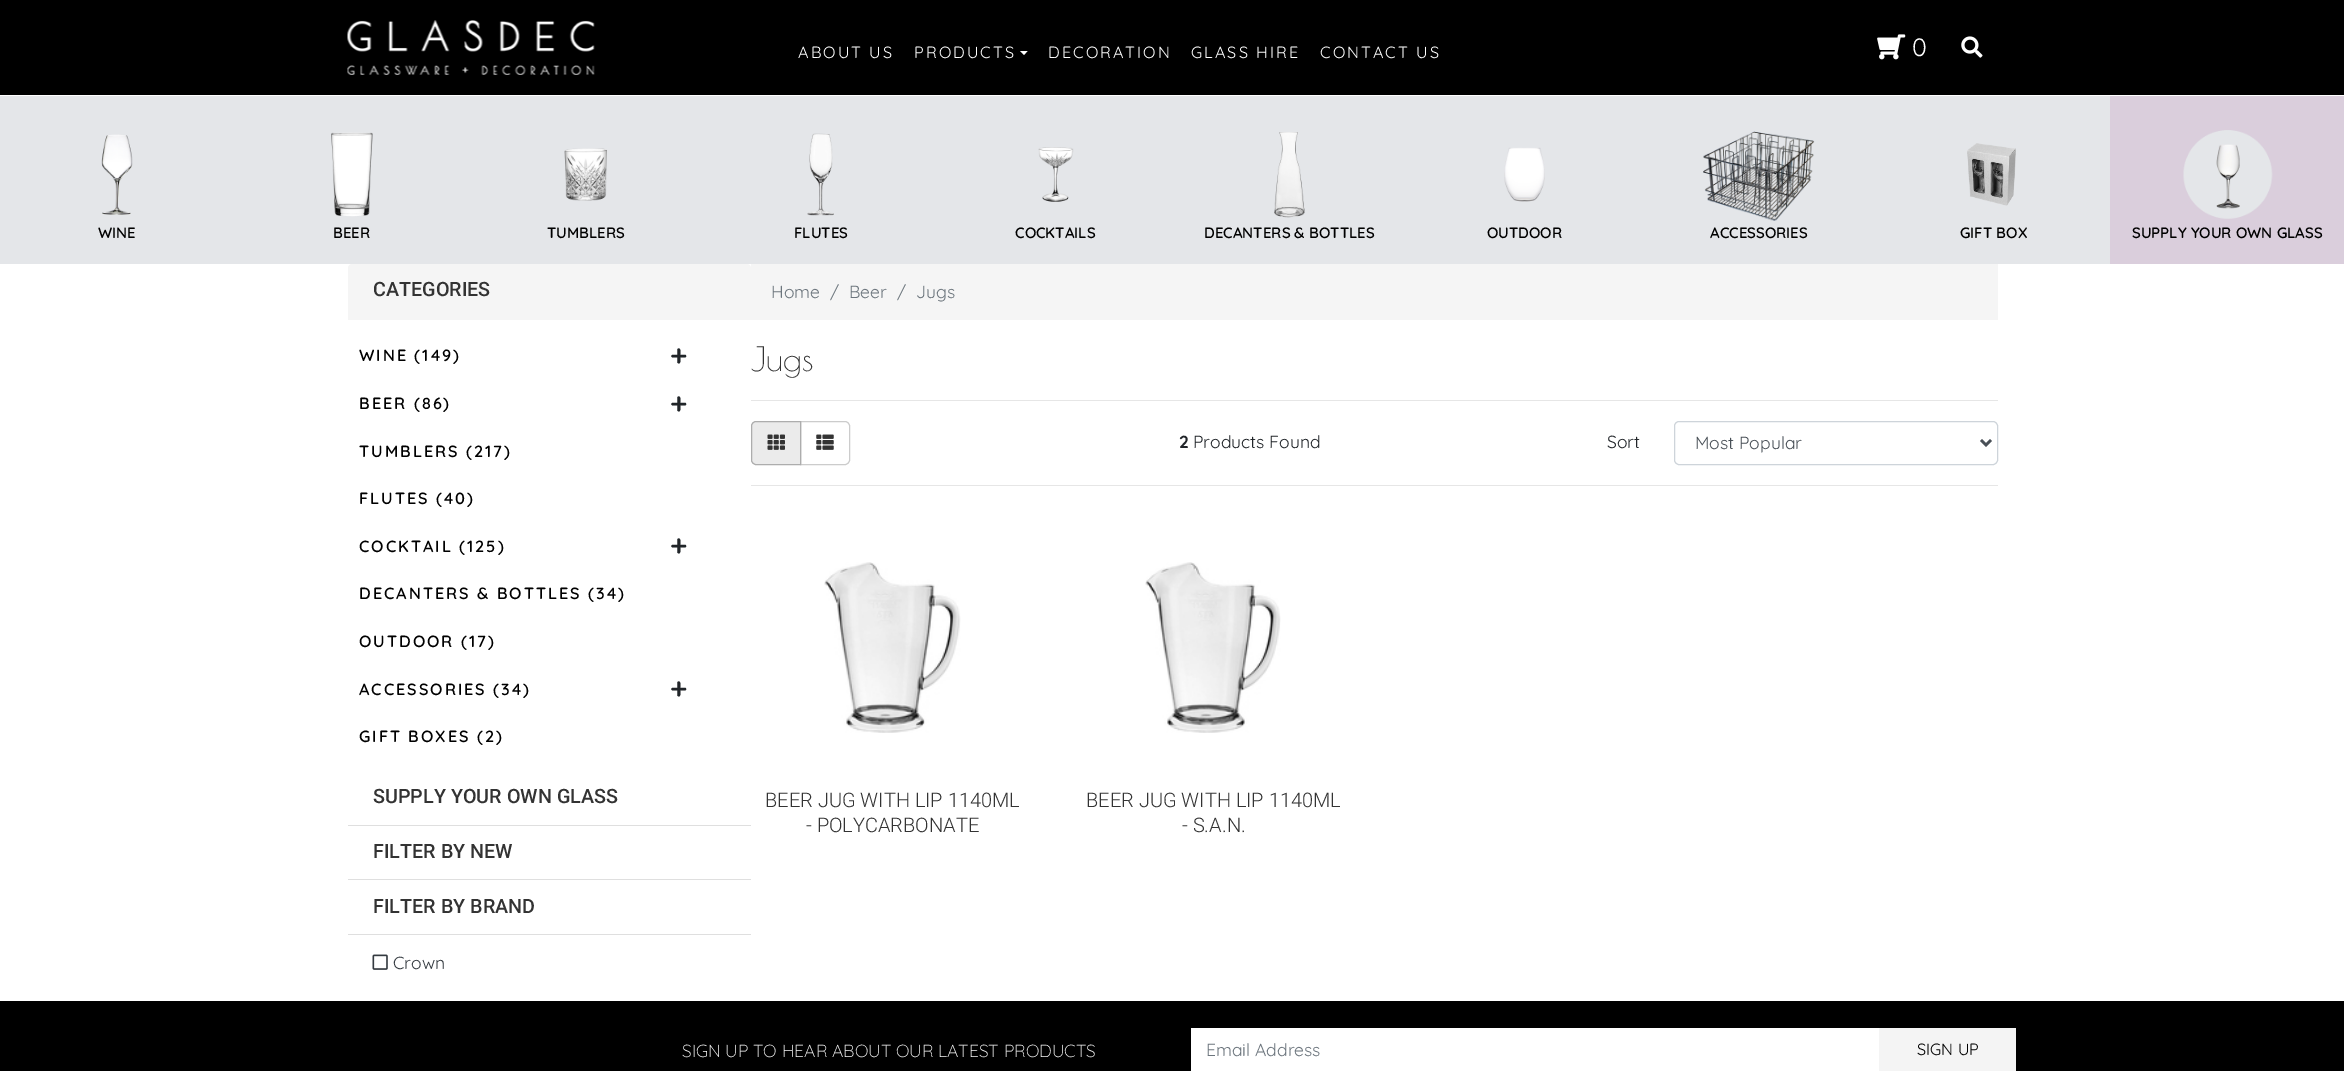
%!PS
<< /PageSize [2344 1071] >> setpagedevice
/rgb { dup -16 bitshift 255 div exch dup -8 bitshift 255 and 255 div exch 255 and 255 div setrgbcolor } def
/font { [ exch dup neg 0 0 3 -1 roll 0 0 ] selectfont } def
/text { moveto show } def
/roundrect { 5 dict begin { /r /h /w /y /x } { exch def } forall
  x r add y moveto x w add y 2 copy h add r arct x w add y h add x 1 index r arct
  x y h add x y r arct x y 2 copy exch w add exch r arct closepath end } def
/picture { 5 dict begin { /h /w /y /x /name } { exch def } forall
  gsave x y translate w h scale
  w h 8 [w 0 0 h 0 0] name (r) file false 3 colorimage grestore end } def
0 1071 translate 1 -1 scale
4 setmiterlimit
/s1 { /Quicksand-Regular 25 font 16#FFFFFF rgb } def
/s2 { /Quicksand-SemiBold 15 font 16#000000 rgb } def
/s3 { /Roboto-Medium 19.75 font 16#333333 rgb } def
/s4 { /Quicksand-SemiBold 30 font 16#212529 rgb } def
/s5 { /Quicksand-Regular 17.5 font 16#343A40 rgb } def
/s6 { /Quicksand-Regular 17.5 font 16#6C757D rgb } def
/s7 { /PoiretOne-Regular 33 font 16#333333 rgb } def
/s8 { /Quicksand-Bold 17.5 font 16#212529 rgb } def
/s9 { /Quicksand-Regular 17.5 font 16#212529 rgb } def
/s10 { /Quicksand-Regular 17.5 font 16#495057 rgb } def
/s11 { /Roboto-Light 20 font 16#333333 rgb } def
/s12 { /Quicksand-Light 17.5 font 16#FFFFFF rgb } def
/s13 { /Quicksand-Regular 16.25 font 16#000000 rgb } def
16#FFFFFF rgb
0 0 2344 1071 rectfill
16#000000 rgb
0 0 2344 95 rectfill
(pic1.raw) 347 20 248 55 picture
/Quicksand-Regular 16.25 font
16#FFFFFF rgb
798 58 moveto 2 0 (ABOUT US) ashow
914 58 moveto 2 0 (PRODUCTS) ashow
1020 51 moveto 1027.5 51 lineto 1024 55 lineto closepath fill
1048 58 moveto 2 0 (DECORATION) ashow
1191 58 moveto 2 0 (GLASS HIRE) ashow
1320 58 moveto 2 0 (CONTACT US) ashow
(pic2.raw) 1877 34 29 26 picture
s1
(0) 1912 56 text
(pic3.raw) 1961 36 22 22 picture
16#E4E6E9 rgb
0 96 2110 168 rectfill
(pic4.raw) 101 134 32 81 picture
s2
(WINE) 98 238 text
(pic5.raw) 331 132 42 85 picture
(BEER) 333 238 text
(pic6.raw) 564 148 43 53 picture
(TUMBLERS) 547 238 text
(pic7.raw) 807 133 27 83 picture
(FLUTES) 794 238 text
(pic8.raw) 1038 147 36 55 picture
(COCKTAILS) 1015 238 text
(pic9.raw) 1274 132 31 86 picture
(DECANTERS & BOTTLES) 1204 238 text
(pic10.raw) 1504 147 41 55 picture
(OUTDOOR) 1487 238 text
(pic11.raw) 1703 131 112 90 picture
(ACCESSORIES) 1710 238 text
(pic12.raw) 1967 143 49 63 picture
(GIFT BOX) 1960 238 text
16#DACEDC rgb
2110 96 234 168 rectfill
(pic13.raw) 2183 130 90 89 picture
s2
(SUPPLY YOUR OWN GLASS) 2132 238 text
16#F5F5F5 rgb
352 264 moveto 747 264 lineto 749 264 751 266 751 268 curveto 751 320 lineto 348 320 lineto 348 268 lineto 348 266 350 264 352 264 curveto closepath fill
s3
(CATEGORIES) 373 296 text
/Quicksand-SemiBold 16.25 font
16#000000 rgb
359 361 moveto 2 0 (WINE \(149\)) ashow
s4
(+) 670 366 text
/Quicksand-SemiBold 16.25 font
16#000000 rgb
359 409 moveto 2 0 (BEER \(86\)) ashow
s4
(+) 670 414 text
/Quicksand-SemiBold 16.25 font
16#000000 rgb
359 457 moveto 2 0 (TUMBLERS \(217\)) ashow
359 504 moveto 2 0 (FLUTES \(40\)) ashow
359 552 moveto 2 0 (COCKTAIL \(125\)) ashow
s4
(+) 670 556 text
/Quicksand-SemiBold 16.25 font
16#000000 rgb
359 599 moveto 2 0 (DECANTERS & BOTTLES \(34\)) ashow
359 647 moveto 2 0 (OUTDOOR \(17\)) ashow
359 695 moveto 2 0 (ACCESSORIES \(34\)) ashow
s4
(+) 670 699 text
/Quicksand-SemiBold 16.25 font
16#000000 rgb
359 742 moveto 2 0 (GIFT BOXES \(2\)) ashow
16#DFDFDF rgb
348 825 403 1 rectfill
s3
(SUPPLY YOUR OWN GLASS) 373 803 text
16#DFDFDF rgb
348 879 403 1 rectfill
s3
(FILTER BY NEW) 373 858 text
16#DFDFDF rgb
348 934 403 1 rectfill
s3
(FILTER BY BRAND) 373 913 text
(pic14.raw) 372 954 16 16 picture
s5
(Crown) 393 969 text
16#F5F5F5 rgb
751 264 1247 56 rectfill
s6
(Home) 771 298 text
(/) 830 298 text
(Beer) 849 298 text
(/) 897 298 text
(Jugs) 916 298 text
s7
(Jugs) 751 371 text
16#E6E6E6 rgb
751 400 1247 1 rectfill
16#CCCCCC rgb
800.5 421.5 moveto 845 421.5 lineto 847.5 421.5 849.5 423.5 849.5 426 curveto 849.5 460 lineto 849.5 462.5 847.5 464.5 845 464.5 curveto 800.5 464.5 lineto closepath stroke
16#EBEBEB rgb
756 421.5 moveto 800.5 421.5 lineto 800.5 464.5 lineto 756 464.5 lineto 753.5 464.5 751.5 462.5 751.5 460 curveto 751.5 426 lineto 751.5 423.5 753.5 421.5 756 421.5 curveto closepath gsave fill grestore
16#ADADAD rgb
stroke
(pic15.raw) 767 434 18 16 picture
(pic16.raw) 816 434 18 16 picture
s8
(2) 1179 448 text
s9
(Products Found) 1193 448 text
(Sort) 1607 448 text
16#CED4DA rgb
1674.5 421.5 323 43 4.5 roundrect stroke
16#495057 rgb
2.5 setlinewidth
1981 440 moveto 1986 445 lineto 1991 440 lineto stroke
(Most Popular) 1695 449 text
16#E6E6E6 rgb
751 485 1247 1 rectfill
(pic17.raw) 824 562 137 171 picture
s11
(BEER JUG WITH LIP 1140ML) 765 807 text
(- POLYCARBONATE) 806 832 text
(pic18.raw) 1145 562 136 171 picture
(BEER JUG WITH LIP 1140ML) 1086 807 text
(- S.A.N.) 1182 832 text
16#000000 rgb
0 1001 2344 70 rectfill
s12
(SIGN UP TO HEAR ABOUT OUR LATEST PRODUCTS) 682 1057 text
1191 1028 688 43 rectfill
s6
(Email Address) 1206 1056 text
16#F4F4F4 rgb
1879 1028 137 43 rectfill
s13
(SIGN UP) 1917 1055 text
showpage
